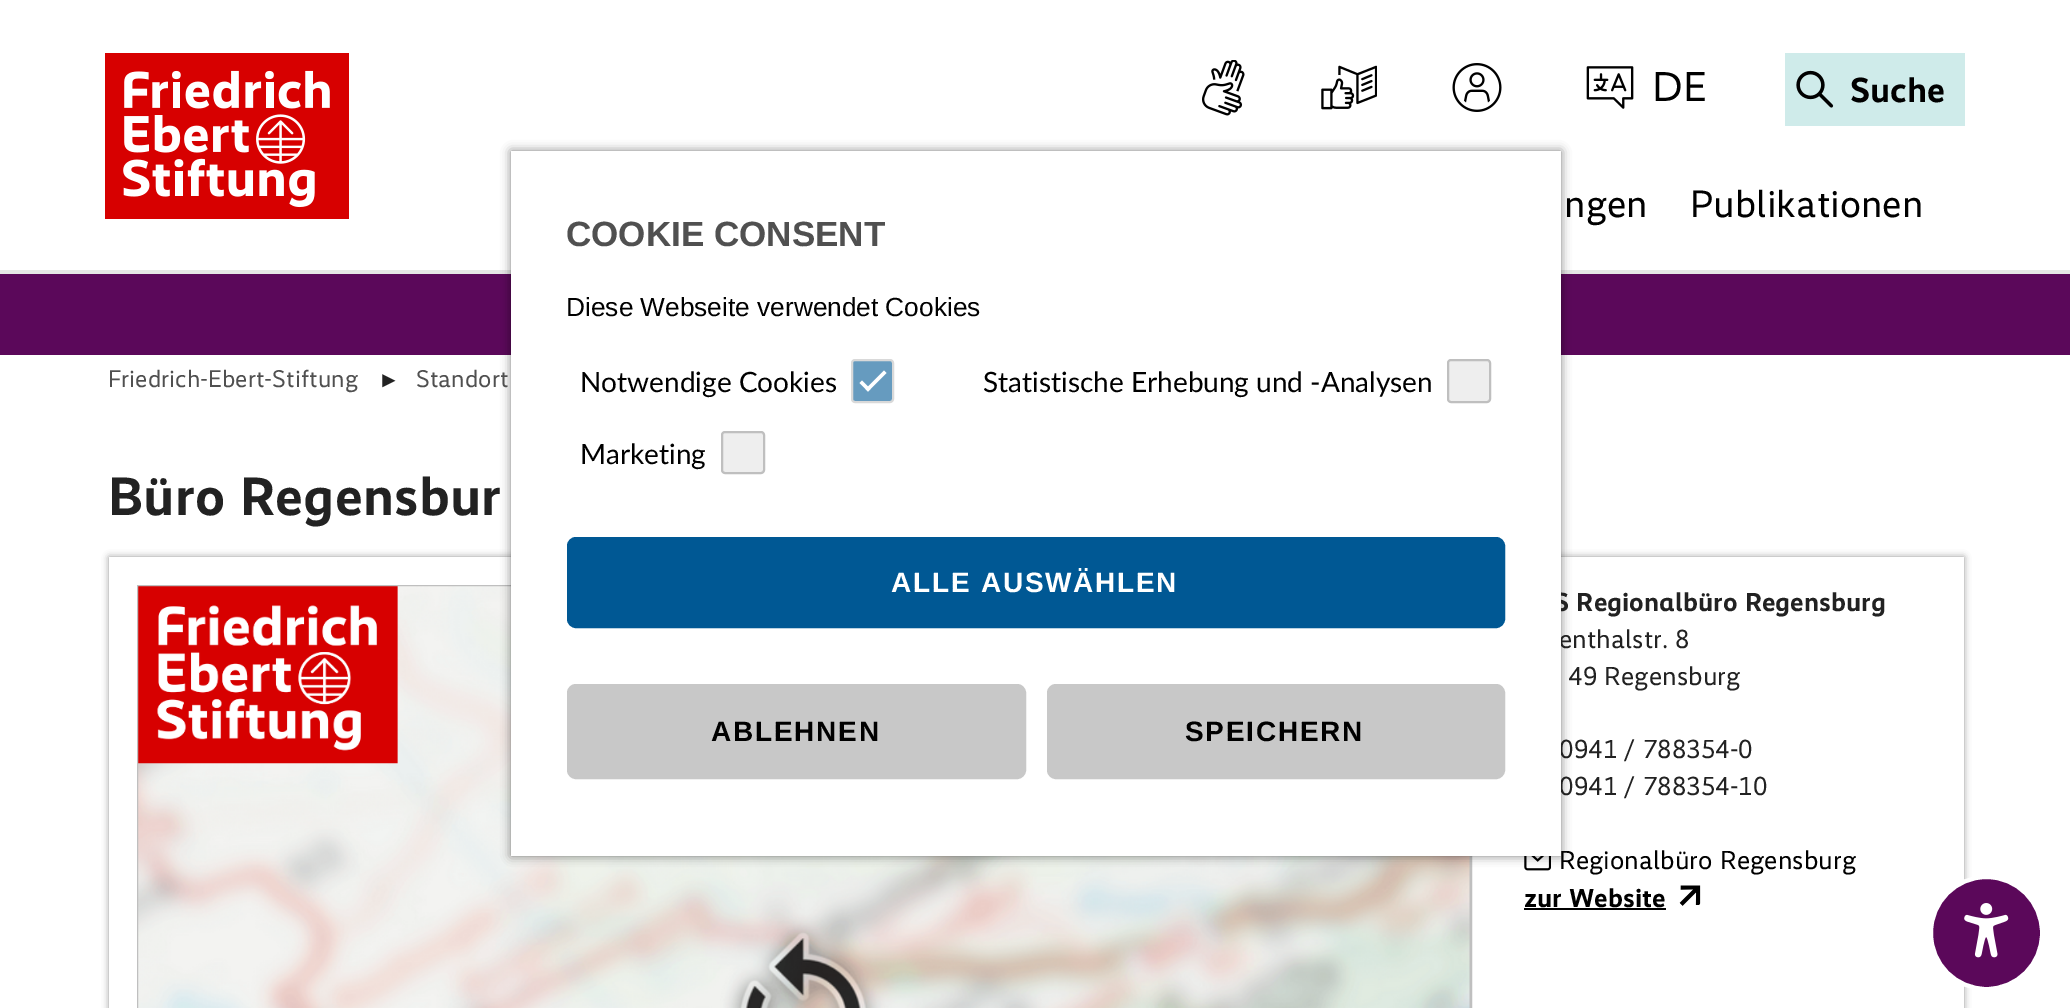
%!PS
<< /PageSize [2070 1008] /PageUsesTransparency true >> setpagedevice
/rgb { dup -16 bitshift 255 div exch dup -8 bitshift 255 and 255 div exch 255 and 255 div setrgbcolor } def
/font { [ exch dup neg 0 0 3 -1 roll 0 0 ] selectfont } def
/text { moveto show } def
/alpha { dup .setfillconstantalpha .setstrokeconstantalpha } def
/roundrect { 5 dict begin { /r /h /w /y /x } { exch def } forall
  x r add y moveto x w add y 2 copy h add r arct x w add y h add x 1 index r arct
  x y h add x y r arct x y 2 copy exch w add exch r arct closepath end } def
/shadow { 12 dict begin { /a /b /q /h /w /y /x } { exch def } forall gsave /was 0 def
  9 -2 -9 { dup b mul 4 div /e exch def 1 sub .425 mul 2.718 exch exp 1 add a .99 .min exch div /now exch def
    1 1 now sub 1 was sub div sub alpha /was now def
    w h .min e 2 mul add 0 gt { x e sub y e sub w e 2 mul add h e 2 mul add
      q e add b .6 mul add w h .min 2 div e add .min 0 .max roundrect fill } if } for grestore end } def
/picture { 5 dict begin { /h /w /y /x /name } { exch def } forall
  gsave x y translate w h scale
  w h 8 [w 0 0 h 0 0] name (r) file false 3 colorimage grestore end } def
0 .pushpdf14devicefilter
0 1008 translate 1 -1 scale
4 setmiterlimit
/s1 { /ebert-Regular 42 font 16#000000 rgb } def
/s2 { /ebert-Bold 35 font 16#000000 rgb } def
/s3 { /ebert-Regular 38.5 font 16#000000 rgb } def
/s4 { /ebert-Bold 26.25 font 16#222222 rgb } def
/s5 { /ebert-Regular 26.25 font 16#222222 rgb } def
/s6 { /LiberationSans-Bold 35 font 16#505050 rgb } def
/s7 { /LiberationSans-Regular 26.25 font 16#000000 rgb } def
/s8 { /Lato-Regular 28 font 16#000000 rgb } def
/s9 { /ebert-Regular 24.25 font 16#505050 rgb } def
/s10 { /LiberationSans-Regular 22 font 16#222222 rgb } def
/s11 { /ebert-Bold 54.25 font 16#222222 rgb } def
/s12 { /ebert-Regular 26.25 font 16#000000 rgb } def
/s13 { /ebert-Bold 26.25 font 16#000000 rgb } def
16#FFFFFF rgb
0 0 2070 1008 rectfill
16#E6E6E6 rgb
0 270 2070 4 rectfill
(pic1.raw) 105 53 244 166 picture
(pic2.raw) 1202 60 43 56 picture
(pic3.raw) 1321 65 56 45 picture
(pic4.raw) 1452 63 50 49 picture
(pic5.raw) 1586 66 48 43 picture
s1
(DE) 1652 101 text
16#CFEBEA rgb
1785 53 180 73 rectfill
(pic6.raw) 1796 70 38 38 picture
s2
(Suche) 1850 102 text
s3
(ngen) 1564 217 text
(Publikationen) 1690 217 text
16#5B085A rgb
0 274 2070 81 rectfill
16#000000 rgb
109 557 1855 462 0 3.5 0.4 shadow
16#FFFFFF rgb
109 557 1855 451 rectfill
16#BFBFBF rgb
2 setlinewidth
138 586 1333 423 rectstroke
(pic7.raw) 138 586 1332 422 picture
(pic8.raw) 1524 856 27 15 picture
16#000000 rgb
511 151 1050 705 0 5 0.5 shadow
s4
(S Regionalbüro Regensburg) 1554 611 text
s5
(enthalstr. 8) 1559 648 text
(0941 / 788354-0) 1559 758 text
(0941 / 788354-10) 1559 795 text
16#FFFFFF rgb
511 151 1050 705 rectfill
s6
(COOKIE CONSENT) 566 246 text
s7
(Diese Webseite verwendet Cookies) 566 316 text
s8
(Notwendige Cookies) 580 392 text
16#669BBF rgb
852 360 41 42 3 roundrect gsave fill grestore
16#D9D9D9 rgb
stroke
16#FFFFFF rgb
884 370.5 moveto 886.5 373 lineto 868 391.5 lineto 865.5 389 lineto closepath fill
862 380.5 moveto 870.5 389 lineto 868 391.5 lineto 859.5 383 lineto closepath fill
s8
(Statistische Erhebung und -Analysen) 983 392 text
16#EEEEEE rgb
1448 360 42 42 3 roundrect gsave fill grestore
16#BFBFBF rgb
stroke
s8
(Marketing) 580 464 text
16#EEEEEE rgb
722 432 42 41 3 roundrect gsave fill grestore
16#BFBFBF rgb
stroke
16#005894 rgb
569 539 934 87 7 roundrect gsave fill grestore
4 setlinewidth
stroke
/LiberationSans-Bold 28 font
16#FFFFFF rgb
891 592 moveto 1.75 0 (ALLE AUSWÄHLEN) ashow
16#C8C8C8 rgb
569.5 686.5 454 90 6.5 roundrect gsave fill grestore
5 setlinewidth
stroke
16#000000 rgb
711 741 moveto 1.75 0 (ABLEHNEN) ashow
16#C8C8C8 rgb
1049.5 686.5 453 90 6.5 roundrect gsave fill grestore
stroke
16#000000 rgb
1185 741 moveto 1.75 0 (SPEICHERN) ashow
s9
(Friedrich-Ebert-Stiftung) 108 387 text
s10
(►) 378 387 text
s9
(Standort) 416 387 text
s11
(Büro Regensbur) 108 515 text
s5
(49 Regensburg) 1568 685 text
s12
(Regionalbüro Regensburg) 1559 869 text
s13
(zur Website) 1524 907 text
1524 908 142 2 rectfill
(pic9.raw) 1679 885 22 21 picture
16#5B085A rgb
1931 877 111 112 55.5 roundrect gsave fill grestore
16#FFFFFF rgb
4 setlinewidth
stroke
(pic10.raw) 1964 903 45 55 picture
.poppdf14devicefilter showpage
